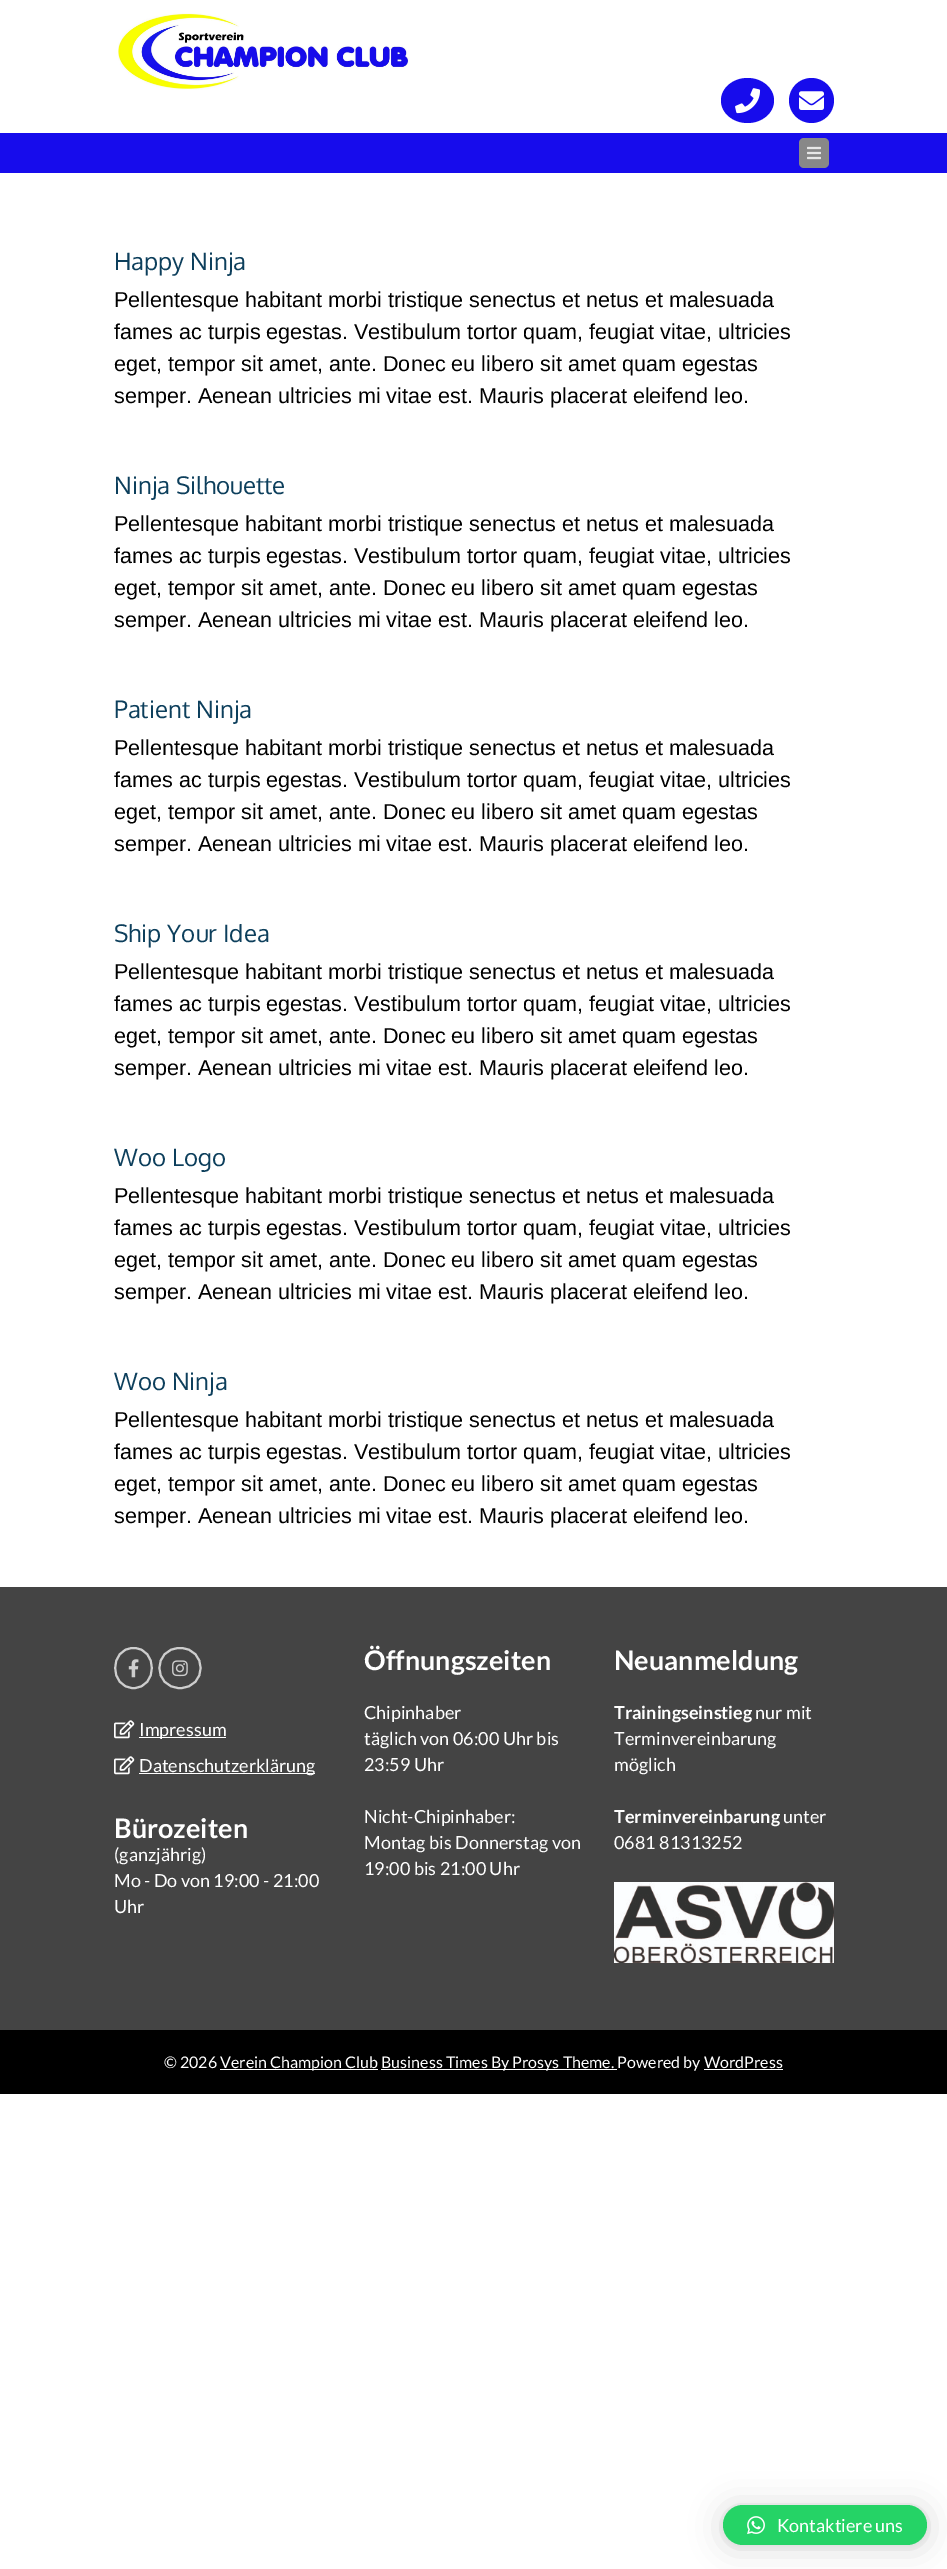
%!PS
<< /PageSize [947 2569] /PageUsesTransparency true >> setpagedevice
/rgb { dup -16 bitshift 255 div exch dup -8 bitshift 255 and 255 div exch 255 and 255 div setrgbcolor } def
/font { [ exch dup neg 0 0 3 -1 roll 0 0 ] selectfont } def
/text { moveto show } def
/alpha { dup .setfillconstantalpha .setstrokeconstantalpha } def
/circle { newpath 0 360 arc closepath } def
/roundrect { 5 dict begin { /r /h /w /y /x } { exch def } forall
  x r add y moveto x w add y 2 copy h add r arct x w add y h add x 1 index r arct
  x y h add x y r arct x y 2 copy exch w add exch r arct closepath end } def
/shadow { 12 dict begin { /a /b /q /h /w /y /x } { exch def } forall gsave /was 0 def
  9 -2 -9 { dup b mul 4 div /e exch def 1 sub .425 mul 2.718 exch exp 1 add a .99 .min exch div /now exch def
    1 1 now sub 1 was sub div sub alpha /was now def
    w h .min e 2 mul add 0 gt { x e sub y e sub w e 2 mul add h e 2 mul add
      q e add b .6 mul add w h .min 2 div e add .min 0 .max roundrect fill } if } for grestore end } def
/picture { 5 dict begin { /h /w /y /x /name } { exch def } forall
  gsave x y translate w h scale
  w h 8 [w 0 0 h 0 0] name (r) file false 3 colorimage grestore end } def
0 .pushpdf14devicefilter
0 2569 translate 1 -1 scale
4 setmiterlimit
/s1 { /Oxygen-Regular 24 font 16#0D3F5C rgb } def
/s2 { /LiberationSans-Regular 21.6 font 16#000000 rgb } def
/s3 { /Lato-Regular 18 font 16#FFFFFF rgb } def
/s4 { /Lato-Bold 27 font 16#FFFFFF rgb } def
/s5 { /Lato-Bold 18 font 16#FFFFFF rgb } def
/s6 { /Lato-Regular 16 font 16#FFFFFF rgb } def
16#FFFFFF rgb
0 0 947 2569 rectfill
(pic1.raw) 118 13 291 77 picture
16#170CEC rgb
747.5 78 moveto 762 78 774 88 774 100.5 curveto 774 113 762 123 747.5 123 curveto 733 123 721 113 721 100.5 curveto 721 88 733 78 747.5 78 curveto closepath fill
(pic2.raw) 735 88 26 26 picture
811.5 100.5 22.5 circle fill
(pic3.raw) 799 91 25 19 picture
0 133 947 40 rectfill
16#888888 rgb
799 138 30 30 5 roundrect fill
(pic4.raw) 807 146 14 14 picture
s1
(Happy Ninja) 114 270 text
s2
(Pellentesque habitant morbi tristique senectus et netus et malesuada) 114 307 text
(fames ac turpis egestas. Vestibulum tortor quam, feugiat vitae, ultricies) 114 339 text
(eget, tempor sit amet, ante. Donec eu libero sit amet quam egestas) 114 371 text
(semper. Aenean ultricies mi vitae est. Mauris placerat eleifend leo.) 114 403 text
s1
(Ninja Silhouette) 114 494 text
s2
(Pellentesque habitant morbi tristique senectus et netus et malesuada) 114 531 text
(fames ac turpis egestas. Vestibulum tortor quam, feugiat vitae, ultricies) 114 563 text
(eget, tempor sit amet, ante. Donec eu libero sit amet quam egestas) 114 595 text
(semper. Aenean ultricies mi vitae est. Mauris placerat eleifend leo.) 114 627 text
s1
(Patient Ninja) 114 718 text
s2
(Pellentesque habitant morbi tristique senectus et netus et malesuada) 114 755 text
(fames ac turpis egestas. Vestibulum tortor quam, feugiat vitae, ultricies) 114 787 text
(eget, tempor sit amet, ante. Donec eu libero sit amet quam egestas) 114 819 text
(semper. Aenean ultricies mi vitae est. Mauris placerat eleifend leo.) 114 851 text
s1
(Ship Your Idea) 114 942 text
s2
(Pellentesque habitant morbi tristique senectus et netus et malesuada) 114 979 text
(fames ac turpis egestas. Vestibulum tortor quam, feugiat vitae, ultricies) 114 1011 text
(eget, tempor sit amet, ante. Donec eu libero sit amet quam egestas) 114 1043 text
(semper. Aenean ultricies mi vitae est. Mauris placerat eleifend leo.) 114 1075 text
s1
(Woo Logo) 114 1166 text
s2
(Pellentesque habitant morbi tristique senectus et netus et malesuada) 114 1203 text
(fames ac turpis egestas. Vestibulum tortor quam, feugiat vitae, ultricies) 114 1235 text
(eget, tempor sit amet, ante. Donec eu libero sit amet quam egestas) 114 1267 text
(semper. Aenean ultricies mi vitae est. Mauris placerat eleifend leo.) 114 1299 text
s1
(Woo Ninja) 114 1390 text
s2
(Pellentesque habitant morbi tristique senectus et netus et malesuada) 114 1427 text
(fames ac turpis egestas. Vestibulum tortor quam, feugiat vitae, ultricies) 114 1459 text
(eget, tempor sit amet, ante. Donec eu libero sit amet quam egestas) 114 1491 text
(semper. Aenean ultricies mi vitae est. Mauris placerat eleifend leo.) 114 1523 text
16#444444 rgb
0 1587 947 443 rectfill
16#CDCDCD rgb
2 setlinewidth
133.5 1648 moveto 158 1648 158 1688 133.5 1688 curveto 109 1688 109 1648 133.5 1648 curveto closepath stroke
(pic5.raw) 128 1659 11 19 picture
180 1648 moveto 207.5 1648 207.5 1688 180 1688 curveto 152.5 1688 152.5 1648 180 1648 curveto closepath stroke
(pic6.raw) 172 1660 16 17 picture
(pic7.raw) 114 1720 21 19 picture
16#FFFFFF rgb
139 1737 87 1 rectfill
s3
(Impressum) 139 1736 text
(pic7.raw) 114 1756 21 19 picture
139 1773 176 1 rectfill
(Datenschutzerklärung) 139 1772 text
s4
(Bürozeiten) 114 1838 text
s3
(\(ganzjährig\)) 114 1861 text
(Mo - Do von 19:00 - 21:00) 114 1887 text
(Uhr) 114 1913 text
s4
(Öffnungszeiten) 364 1670 text
s3
(Chipinhaber) 364 1719 text
(täglich von 06:00 Uhr bis) 364 1745 text
(23:59 Uhr) 364 1771 text
(Nicht-Chipinhaber:) 364 1823 text
(Montag bis Donnerstag von) 364 1849 text
(19:00 bis 21:00 Uhr) 364 1875 text
s4
(Neuanmeldung) 614 1670 text
s5
(Trainingseinstieg) 614 1719 text
s3
(nur mit) 755 1719 text
(Terminvereinbarung) 614 1745 text
(möglich) 614 1771 text
s5
(Terminvereinbarung) 614 1823 text
s3
(unter) 783 1823 text
(0681 81313252) 614 1849 text
(pic8.raw) 614 1882 220 81 picture
16#000000 rgb
0 2030 947 64 rectfill
s6
(© 2026) 164 2068 text
220 2069 158 1 rectfill
(Verein Champion Club) 220 2068 text
381 2069 236 1 rectfill
(Business Times By Prosys Theme. Powered by WordPress) 381 2068 text
704 2069 79 1 rectfill
16#000000 rgb
723 2507 204 40 20 16 0.16 shadow
723 2506 204 40 20 3 0.06 shadow
16#25D366 rgb
723 2505 204 40 20 roundrect fill
(pic9.raw) 747 2516 18 19 picture
s3
(Kontaktiere uns) 777 2532 text
.poppdf14devicefilter showpage
